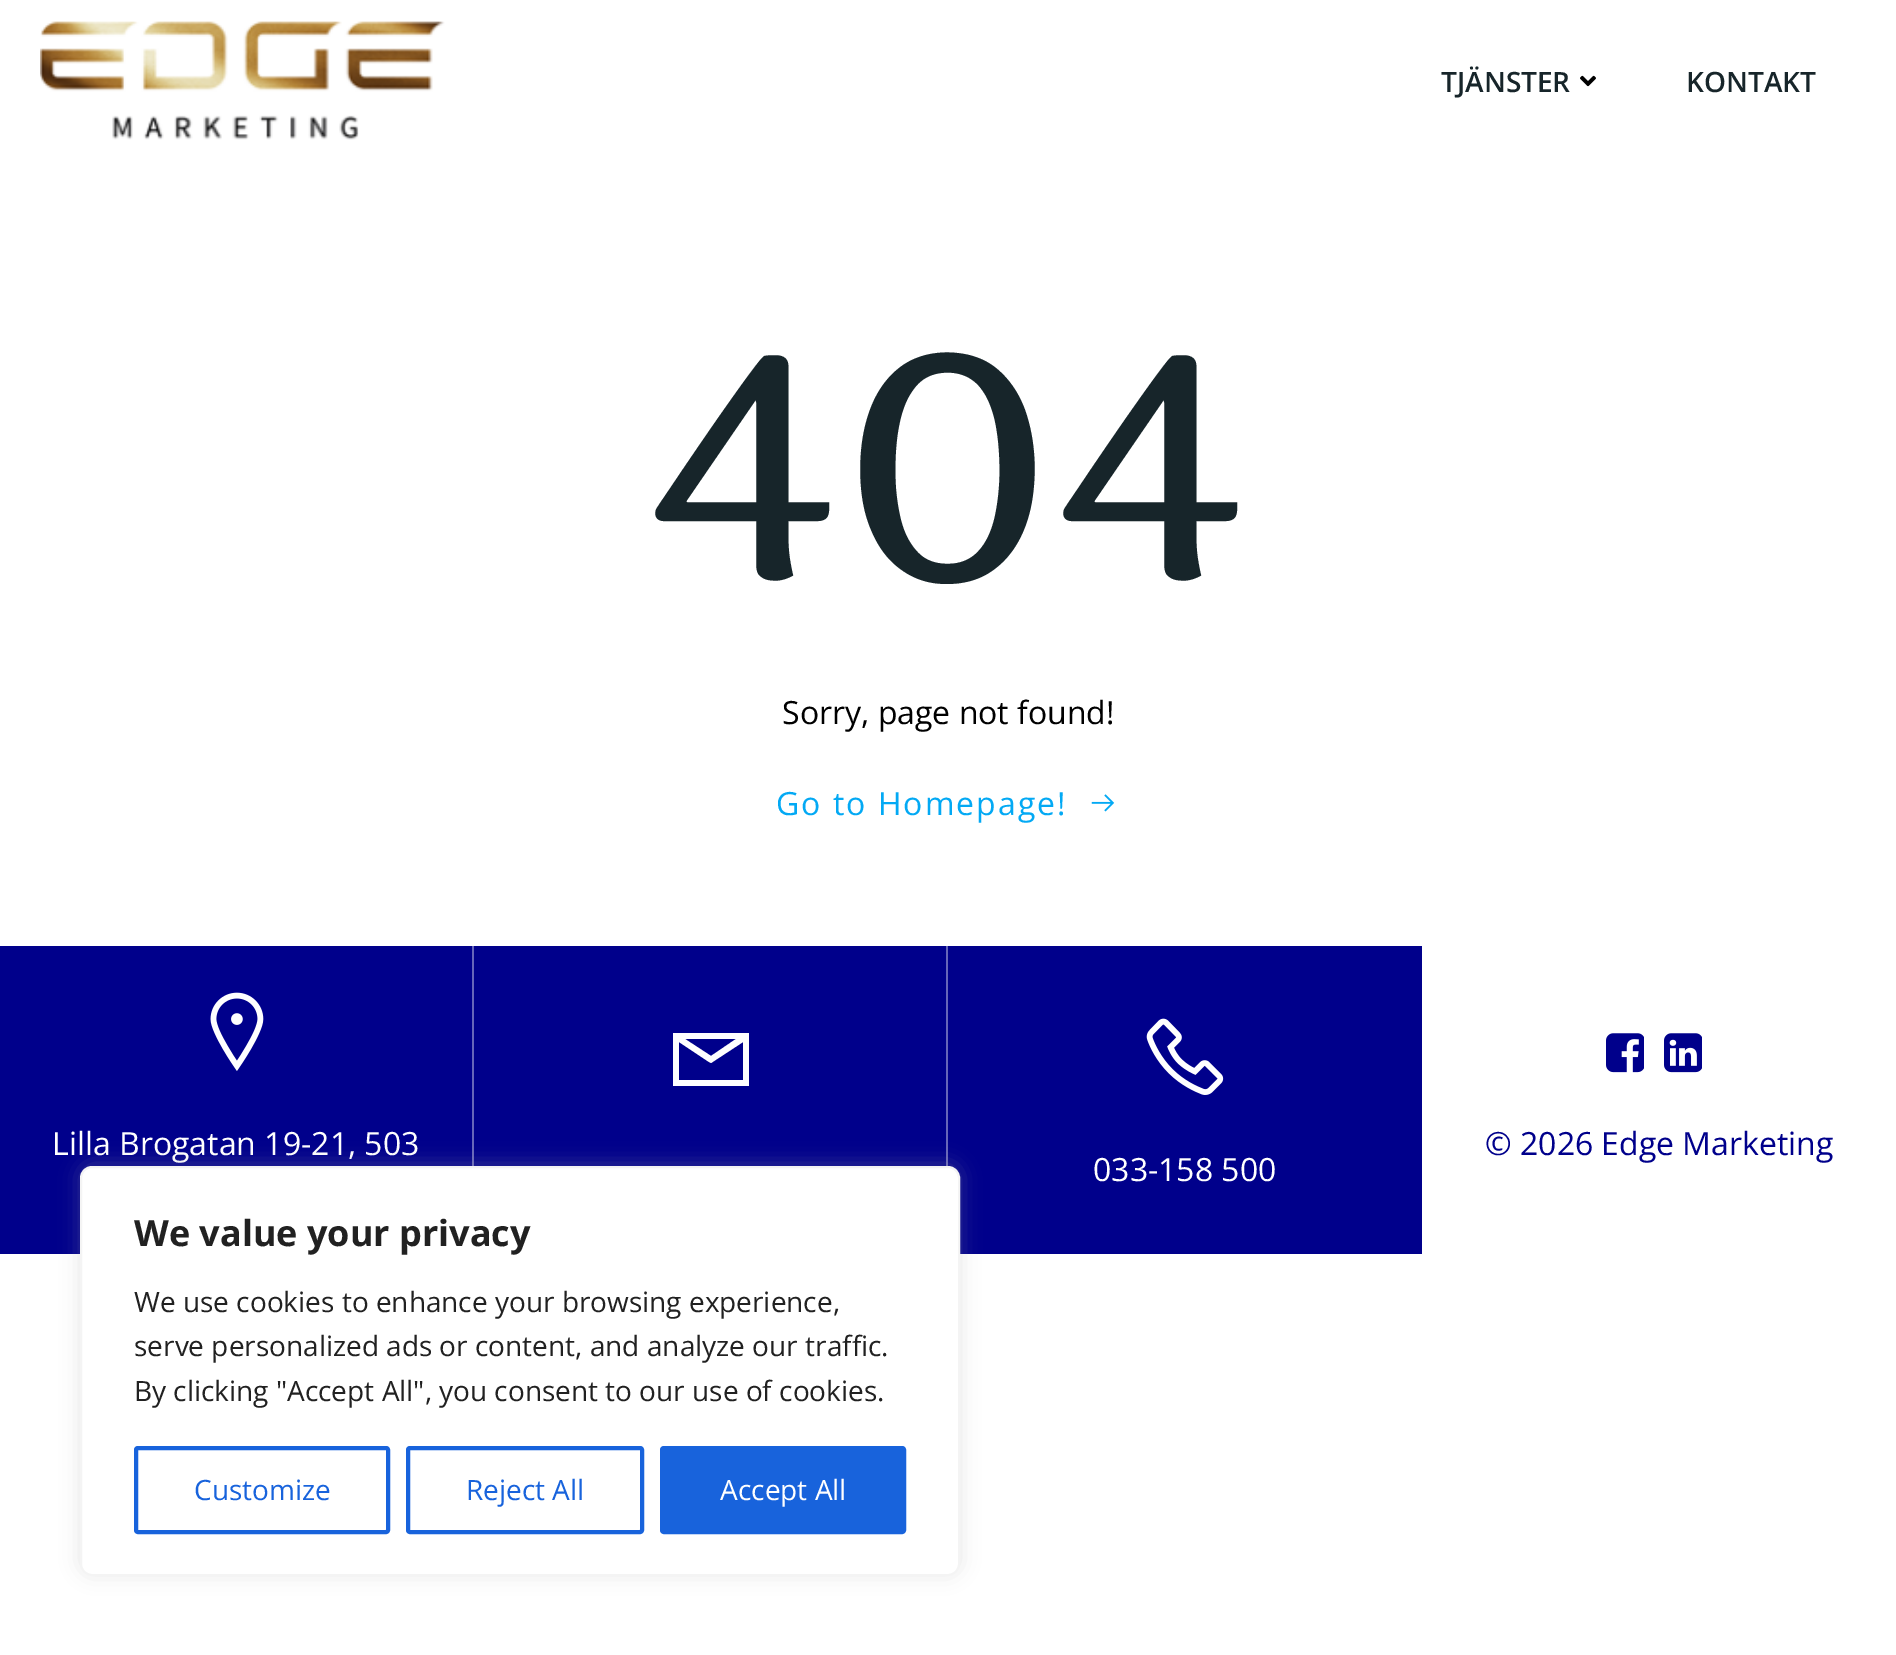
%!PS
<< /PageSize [1896 1655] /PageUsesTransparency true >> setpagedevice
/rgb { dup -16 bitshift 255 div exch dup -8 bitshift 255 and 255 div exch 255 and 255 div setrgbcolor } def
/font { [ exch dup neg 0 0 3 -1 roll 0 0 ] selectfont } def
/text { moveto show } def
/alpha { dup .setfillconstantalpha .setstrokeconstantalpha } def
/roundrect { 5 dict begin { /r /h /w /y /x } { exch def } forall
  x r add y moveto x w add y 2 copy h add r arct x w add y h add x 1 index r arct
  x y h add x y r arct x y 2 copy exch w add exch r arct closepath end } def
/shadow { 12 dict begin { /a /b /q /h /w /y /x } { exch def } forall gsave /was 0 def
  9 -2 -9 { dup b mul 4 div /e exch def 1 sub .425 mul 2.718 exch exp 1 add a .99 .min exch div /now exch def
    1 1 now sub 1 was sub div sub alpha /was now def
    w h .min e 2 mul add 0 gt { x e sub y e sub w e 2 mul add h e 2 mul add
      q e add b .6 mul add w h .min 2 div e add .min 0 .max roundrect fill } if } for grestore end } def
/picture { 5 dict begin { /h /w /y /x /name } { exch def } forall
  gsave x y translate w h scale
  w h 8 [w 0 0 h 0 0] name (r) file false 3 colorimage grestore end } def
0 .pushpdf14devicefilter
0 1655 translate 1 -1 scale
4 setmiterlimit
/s1 { /OpenSans-SemiBold 28 font 16#17252A rgb } def
/s2 { /Artifika-Regular 320 font 16#17252A rgb } def
/s3 { /OpenSans-Regular 32 font 16#000000 rgb } def
/s4 { /OpenSans-Regular 32 font 16#FFFFFF rgb } def
/s5 { /OpenSans-Regular 32 font 16#00008B rgb } def
/s6 { /OpenSans-Bold 36 font 16#212121 rgb } def
/s7 { /OpenSans-Regular 28 font 16#212121 rgb } def
/s8 { /OpenSans-Regular 28 font 16#1863DC rgb } def
/s9 { /OpenSans-Regular 28 font 16#FFFFFF rgb } def
16#FFFFFF rgb
0 0 1896 1655 rectfill
(pic1.raw) 40 21 405 119 picture
s1
(TJÄNSTER) 1441 92 text
(pic2.raw) 1580 75 16 12 picture
(KONTAKT) 1686 92 text
s2
(404) 649 578 text
s3
(Sorry, page not found!) 782 724 text
16#03A9F4 rgb
776 815 moveto 2 0 (Go to Homepage!) ashow
(pic3.raw) 1091 794 24 18 picture
16#00008B rgb
0 946 472 308 rectfill
16#6666B9 rgb
472 946 2 220 rectfill
(pic4.raw) 210 992 54 79 picture
s4
(Lilla Brogatan 19-21, 503) 52 1155 text
16#00008B rgb
474 946 472 220 rectfill
16#6666B9 rgb
946 946 2 220 rectfill
16#FFFFFF rgb
673 1033 moveto 749 1033 lineto 749 1086 lineto 673 1086 lineto closepath 685 1039 moveto 711 1056 lineto 736 1039 lineto closepath 679 1042 moveto 679 1080 lineto 743 1080 lineto 743 1042 lineto 711 1063 lineto 709 1062 lineto closepath fill
(pic5.raw) 1606 1033 38 40 picture
(pic6.raw) 1664 1033 38 40 picture
s5
(© 2026 Edge Marketing) 1485 1155 text
948 946 474 308 rectfill
(pic7.raw) 1146 1018 78 77 picture
s4
(033-158 500) 1093 1181 text
16#ACABAB rgb
80 1164 880 410 12 10 0.3 shadow
16#FFFFFF rgb
81 1167 878 408 11 roundrect gsave fill grestore
16#F4F4F4 rgb
2 setlinewidth
stroke
s6
(We value your privacy) 134 1246 text
s7
(We use cookies to enhance your browsing experience,) 134 1312 text
(serve personalized ads or content, and analyze our traffic.) 134 1356 text
(By clicking "Accept All", you consent to our use of cookies.) 134 1401 text
16#1863DC rgb
4 setlinewidth
136 1448 252 84 2 roundrect stroke
(Customize) 194 1500 text
408 1448 234 84 2 roundrect stroke
(Reject All) 466 1500 text
662 1448 242 84 2 roundrect gsave fill grestore
stroke
s9
(Accept All) 720 1500 text
.poppdf14devicefilter showpage
